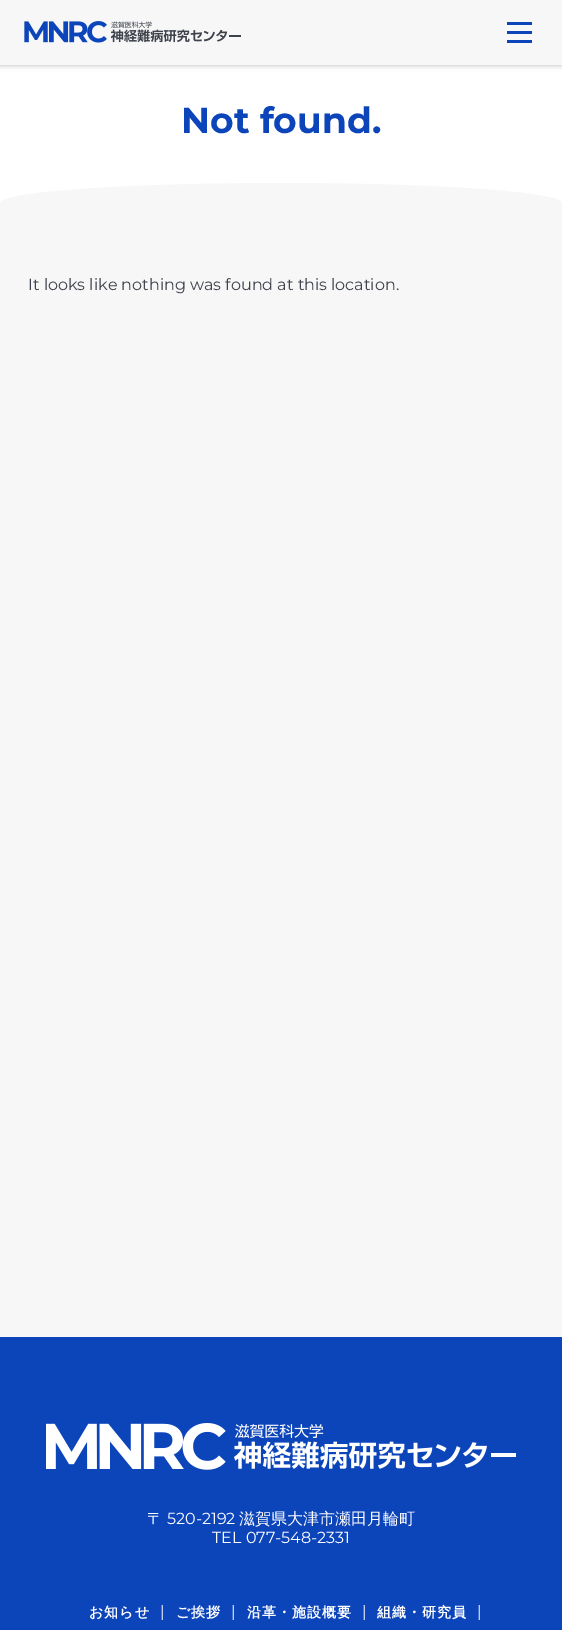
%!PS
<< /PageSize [562 1630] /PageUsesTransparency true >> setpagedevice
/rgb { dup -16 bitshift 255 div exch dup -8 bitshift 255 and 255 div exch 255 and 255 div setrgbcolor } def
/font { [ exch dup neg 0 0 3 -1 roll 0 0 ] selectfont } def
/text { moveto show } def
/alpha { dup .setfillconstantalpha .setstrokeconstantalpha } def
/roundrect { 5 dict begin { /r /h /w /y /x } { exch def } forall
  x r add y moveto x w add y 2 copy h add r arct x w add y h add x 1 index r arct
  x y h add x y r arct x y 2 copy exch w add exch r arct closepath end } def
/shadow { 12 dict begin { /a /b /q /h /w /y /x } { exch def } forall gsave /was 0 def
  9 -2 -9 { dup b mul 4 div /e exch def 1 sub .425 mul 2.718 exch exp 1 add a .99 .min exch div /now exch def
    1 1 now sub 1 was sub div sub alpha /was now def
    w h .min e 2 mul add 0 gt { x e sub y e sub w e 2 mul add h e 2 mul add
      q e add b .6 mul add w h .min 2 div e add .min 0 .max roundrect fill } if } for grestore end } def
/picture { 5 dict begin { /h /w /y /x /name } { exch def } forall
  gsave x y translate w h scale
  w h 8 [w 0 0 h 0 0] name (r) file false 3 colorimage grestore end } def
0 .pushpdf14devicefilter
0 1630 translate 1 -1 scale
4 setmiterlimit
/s1 { /Montserrat-Bold 36 font 16#0C45BA rgb } def
/s2 { /Montserrat-Regular 16 font 16#3D424B rgb } def
/s3 { /WenQuanYiZenHei-Medium 16 font 16#FFFFFF rgb } def
/s4 { /Montserrat-Regular 16 font 16#FFFFFF rgb } def
16#FFFFFF rgb
0 0 562 1630 rectfill
16#000000 rgb
0 0 562 65 0 3 0.3 shadow
16#F7F7F7 rgb
0 0 562 65 rectfill
(pic1.raw) 24 21 217 22 picture
16#0C45BA rgb
507 22 25 3 rectfill
507 31 25 3 rectfill
507 40 25 3 rectfill
s1
(Not found.) 181 133 text
16#F7F7F7 rgb
281 183 moveto 436 183 562 192 562 203 curveto 562 1337 lineto 0 1337 lineto 0 203 lineto 0 192 126 183 281 183 curveto closepath fill
s2
(It looks like nothing was found at this location.) 28 290 text
16#0C45BA rgb
0 1337 562 293 rectfill
(pic2.raw) 46 1423 470 47 picture
s3
(〒) 147 1524 text
s4
(520-2192) 167 1524 text
s3
(滋賀県大津市瀬田月輪町) 239 1524 text
s4
(TEL 077-548-2331) 212 1543 text
/WenQuanYiZenHei-Bold 14 font
89 1617 moveto 1 0 (お知らせ) ashow
/Montserrat-Regular 16 font
160 1617 moveto 1 0 (|) ashow
/WenQuanYiZenHei-Bold 14 font
176 1617 moveto 1 0 (ご挨拶) ashow
/Montserrat-Regular 16 font
231 1617 moveto 1 0 (|) ashow
/WenQuanYiZenHei-Bold 14 font
247 1617 moveto 1 0 (沿革・施設概要) ashow
/Montserrat-Regular 16 font
362 1617 moveto 1 0 (|) ashow
/WenQuanYiZenHei-Bold 14 font
377 1617 moveto 1 0 (組織・研究員) ashow
/Montserrat-Regular 16 font
477 1617 moveto 1 0 (|) ashow
.poppdf14devicefilter showpage
